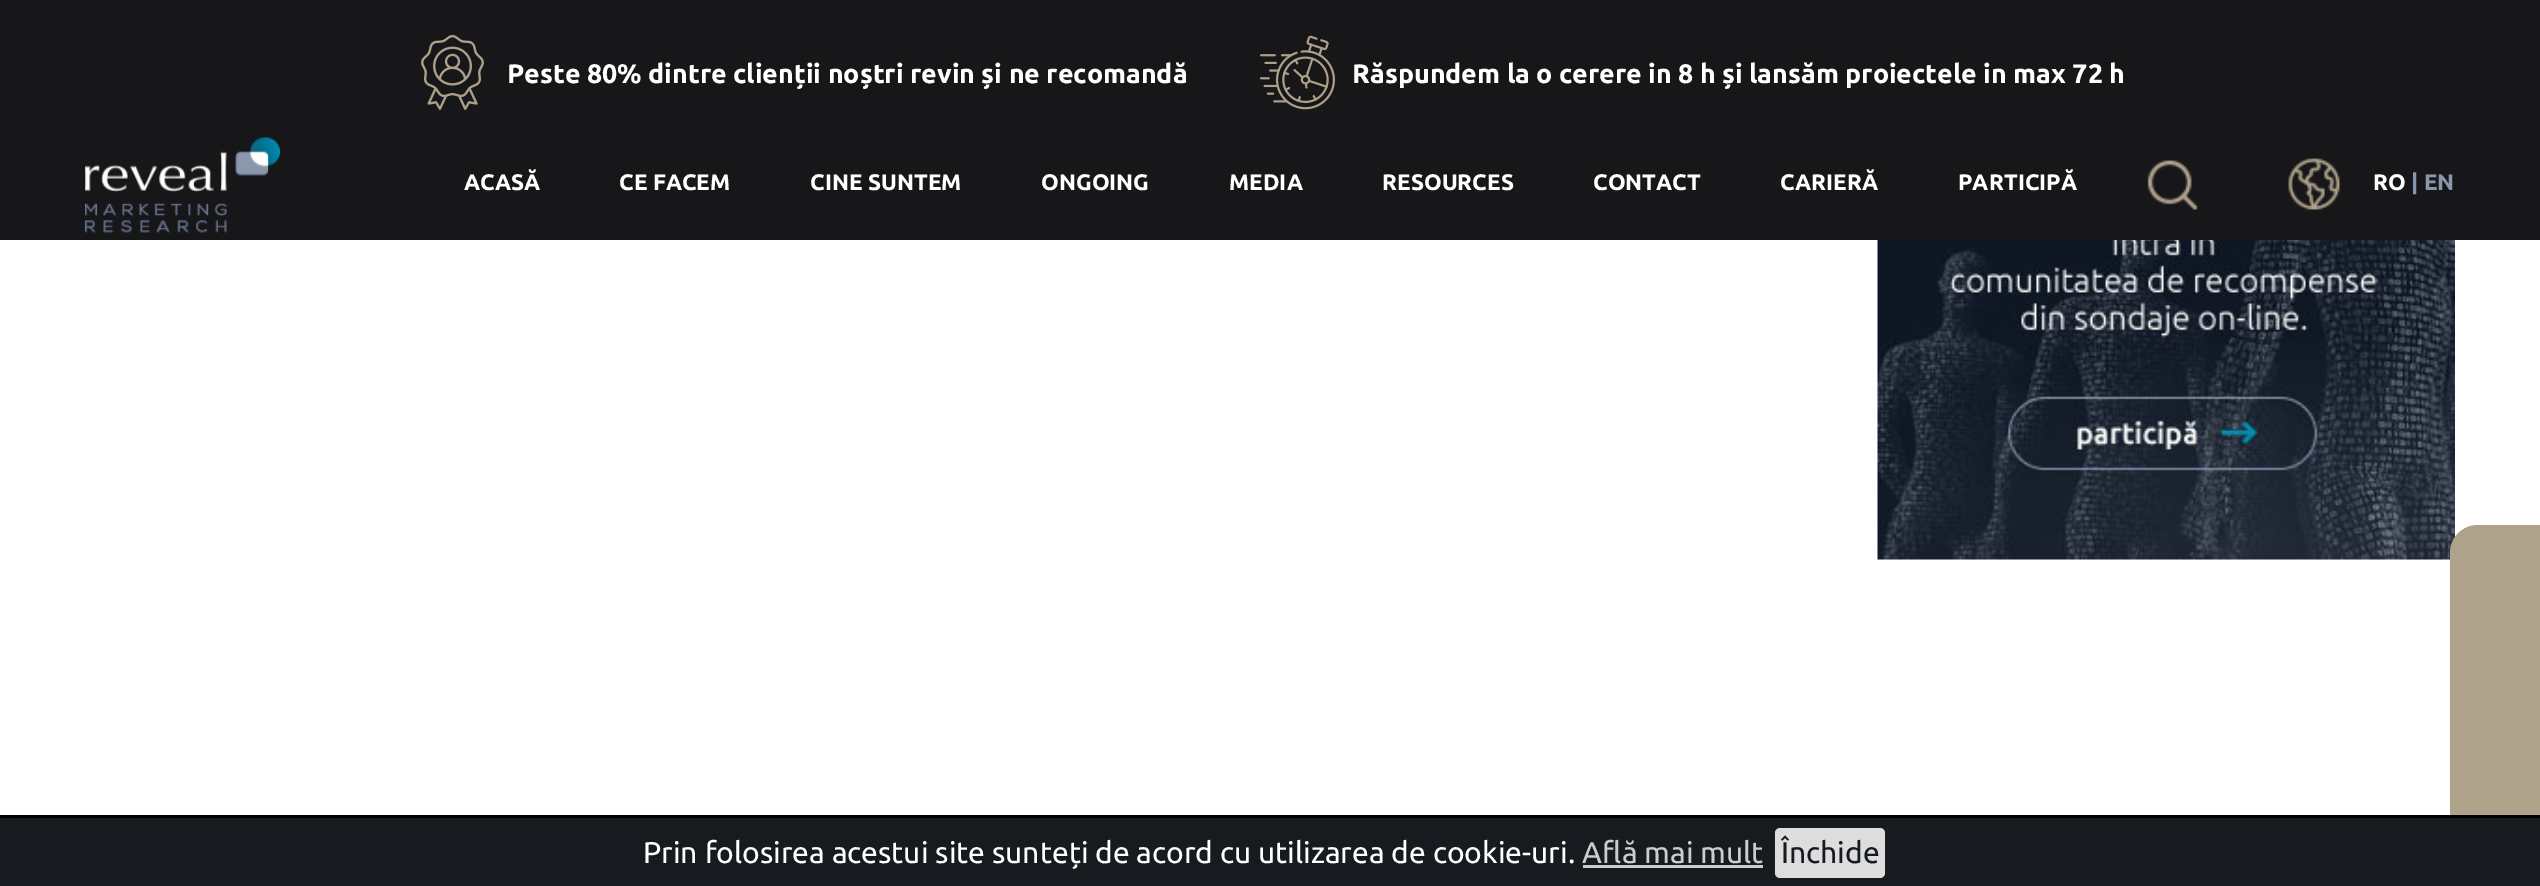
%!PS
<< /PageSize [2540 886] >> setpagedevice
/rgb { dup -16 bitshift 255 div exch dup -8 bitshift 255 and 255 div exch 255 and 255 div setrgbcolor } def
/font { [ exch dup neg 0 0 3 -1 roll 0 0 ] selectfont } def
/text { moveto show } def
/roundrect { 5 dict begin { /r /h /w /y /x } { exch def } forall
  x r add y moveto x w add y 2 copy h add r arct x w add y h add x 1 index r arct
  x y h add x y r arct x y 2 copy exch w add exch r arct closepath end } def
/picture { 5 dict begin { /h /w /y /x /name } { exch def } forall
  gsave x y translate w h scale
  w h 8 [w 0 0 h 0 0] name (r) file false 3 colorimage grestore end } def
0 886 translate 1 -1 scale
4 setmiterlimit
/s1 { /Ubuntu-Bold 26.75 font 16#FFFFFF rgb } def
/s2 { /Ubuntu-Bold 22.5 font 16#FFFFFF rgb } def
/s3 { /Ubuntu-Bold 22.5 font 16#8996AC rgb } def
/s4 { /Ubuntu-Regular 30 font 16#FFFFFF rgb } def
/s5 { /Ubuntu-Regular 30 font 16#CCCCCC rgb } def
/s6 { /Ubuntu-Regular 30 font 16#171B20 rgb } def
16#FFFFFF rgb
0 0 2540 886 rectfill
16#17171A rgb
0 0 2540 240 rectfill
(pic1.raw) 421 35 63 75 picture
s1
(Peste 80% dintre clienții noștri revin și ne recomandă) 507 83 text
(pic2.raw) 1260 35 75 75 picture
(Răspundem la o cerere in 8 h și lansăm proiectele in max 72 h) 1352 83 text
(pic3.raw) 85 137 195 96 picture
s2
(ACASĂ) 464 190 text
(CE FACEM) 619 190 text
(CINE SUNTEM) 810 190 text
(ONGOING) 1041 190 text
(MEDIA) 1229 190 text
(RESOURCES) 1382 190 text
(CONTACT) 1593 190 text
(CARIERĂ) 1780 190 text
(PARTICIPĂ) 1958 190 text
(pic4.raw) 2147 160 51 50 picture
(pic5.raw) 2288 158 52 52 picture
(RO) 2373 190 text
s3
(| EN) 2411 190 text
(pic6.raw) 1877 240 578 320 picture
16#AEA28A rgb
2478 525 moveto 2540 525 lineto 2540 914 lineto 2478 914 lineto 2462.5 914 2450 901.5 2450 886 curveto 2450 553 lineto 2450 537.5 2462.5 525 2478 525 curveto closepath fill
16#171B20 rgb
0 818 2540 68 rectfill
16#000000 rgb
0 815 2540 3 rectfill
s4
(Prin folosirea acestui site sunteți de acord cu utilizarea de cookie-uri.) 643 863 text
s5
(Află mai mult) 1582 863 text
1583 865 180 3 rectfill
16#DDDDDD rgb
1775 828 110 50 5 roundrect fill
s6
(Închide) 1781 863 text
showpage
